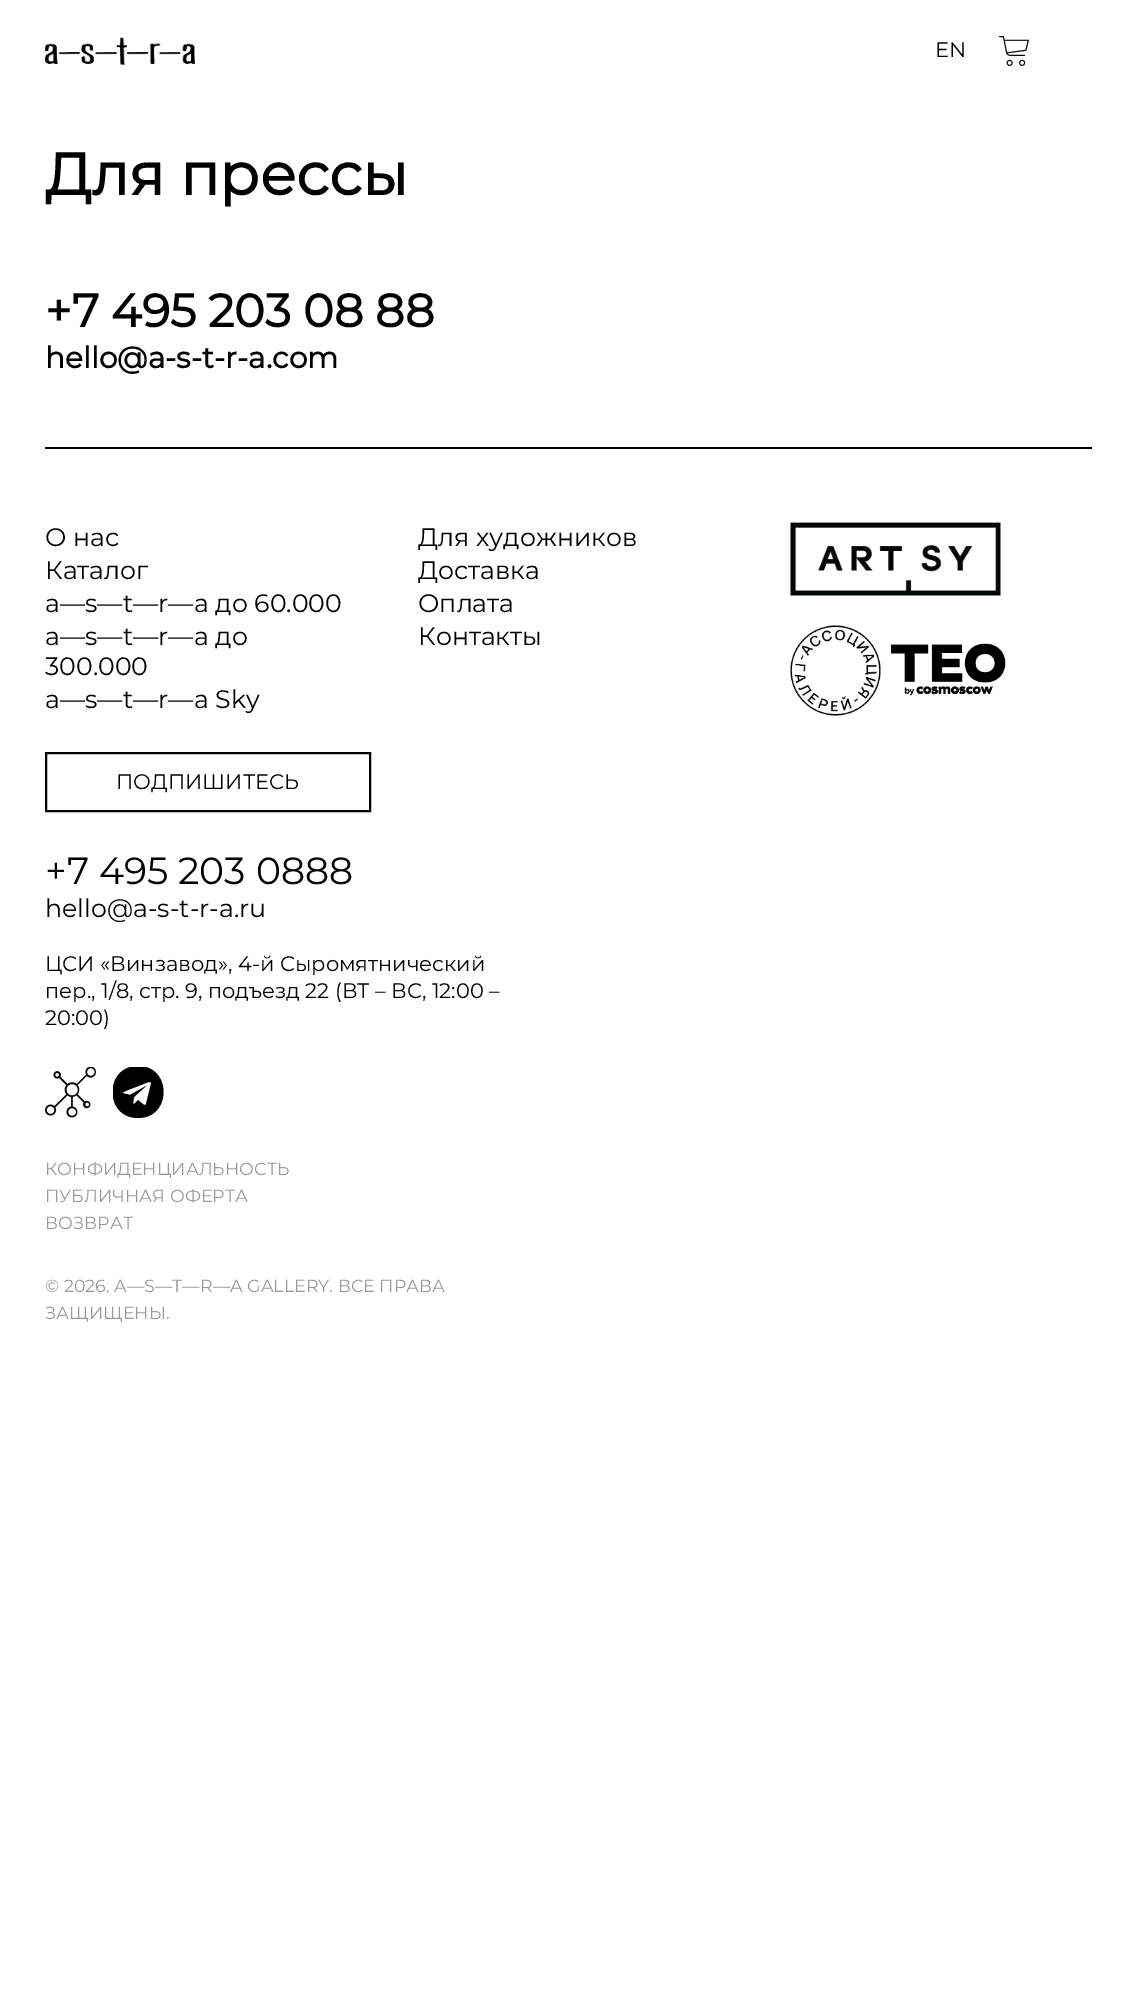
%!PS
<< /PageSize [1137 1999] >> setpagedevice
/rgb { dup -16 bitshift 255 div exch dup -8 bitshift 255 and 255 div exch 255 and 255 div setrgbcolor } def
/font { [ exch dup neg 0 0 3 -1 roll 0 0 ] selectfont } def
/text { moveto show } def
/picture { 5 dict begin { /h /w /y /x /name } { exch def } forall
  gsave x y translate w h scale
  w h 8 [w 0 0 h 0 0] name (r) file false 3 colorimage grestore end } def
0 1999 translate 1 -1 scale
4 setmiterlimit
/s1 { /Montserrat-Regular 21 font 16#000000 rgb } def
/s2 { /Montserrat-Bold 58.75 font 16#000000 rgb } def
/s3 { /Montserrat-Bold 46.25 font 16#000000 rgb } def
/s4 { /Montserrat-Bold 29.5 font 16#000000 rgb } def
/s5 { /Montserrat-Regular 25.25 font 16#000000 rgb } def
/s6 { /Montserrat-Regular 37.75 font 16#000000 rgb } def
/s7 { /Montserrat-Regular 17.5 font 16#999999 rgb } def
16#FFFFFF rgb
0 0 1137 1999 rectfill
(pic1.raw) 45 37 150 28 picture
s1
(EN) 935 57 text
(pic2.raw) 999 36 30 30 picture
s2
(Для прессы) 45 195 text
s3
(+7 495 203 08 88) 45 327 text
s4
(hello@a-s-t-r-a.com) 45 368 text
45 447 1047 2 rectfill
s5
(О нас) 45 546 text
(Каталог) 45 579 text
(a—s—t—r—a до 60.000) 45 612 text
(a—s—t—r—a до) 45 645 text
(300.000) 45 675 text
(a—s—t—r—a Sky) 45 708 text
(Для художников) 418 546 text
(Доставка) 418 579 text
(Оплата) 418 612 text
(Контакты) 418 645 text
(pic3.raw) 790 522 211 74 picture
(pic4.raw) 790 625 91 91 picture
(pic5.raw) 891 643 115 53 picture
2 setlinewidth
46 753 324 58 rectstroke
s1
(ПОДПИШИТЕСЬ) 116 789 text
s6
(+7 495 203 0888) 45 884 text
s5
(hello@a-s-t-r-a.ru) 45 917 text
s1
(ЦСИ «Винзавод», 4-й Сыромятнический) 45 971 text
(пер., 1/8, стр. 9, подъезд 22 \(ВТ – ВС, 12:00 –) 45 998 text
(20:00\)) 45 1025 text
(pic6.raw) 45 1067 51 51 picture
gsave
113 1067 51 51 rectclip
138 1066 moveto 104 1066 104 1118 138 1118 curveto 172 1118 172 1066 138 1066 curveto closepath 151 1084 moveto 146 1104 lineto 146 1105 145 1105 144 1105 curveto 138 1100 lineto 137 1101 135 1104 133 1104 curveto 134 1097 lineto 146 1086 lineto 130 1095 lineto 124 1093 118 1094 128 1090 curveto 141 1085 lineto 142 1085 152 1079 151 1084 curveto closepath fill
grestore
s7
(КОНФИДЕНЦИАЛЬНОСТЬ) 45 1175 text
(ПУБЛИЧНАЯ ОФЕРТА) 45 1202 text
(ВОЗВРАТ) 45 1229 text
(© 2026. A—S—T—R—A GALLERY. ВСЕ ПРАВА) 45 1292 text
(ЗАЩИЩЕНЫ.) 45 1319 text
showpage
